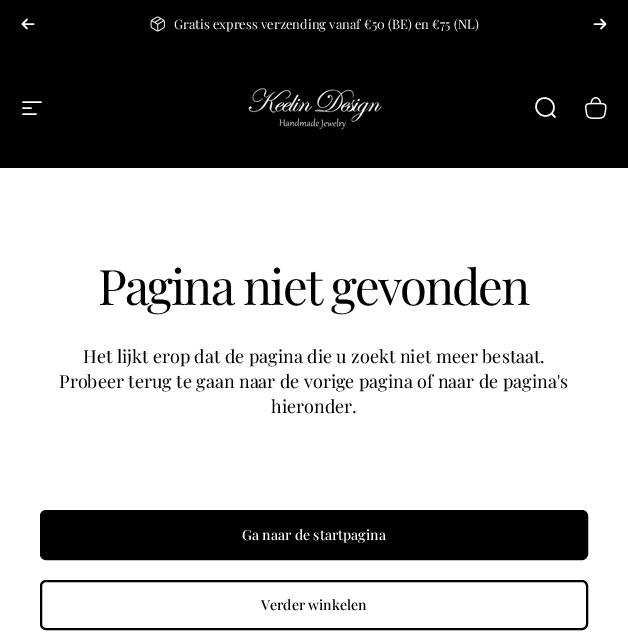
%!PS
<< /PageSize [628 636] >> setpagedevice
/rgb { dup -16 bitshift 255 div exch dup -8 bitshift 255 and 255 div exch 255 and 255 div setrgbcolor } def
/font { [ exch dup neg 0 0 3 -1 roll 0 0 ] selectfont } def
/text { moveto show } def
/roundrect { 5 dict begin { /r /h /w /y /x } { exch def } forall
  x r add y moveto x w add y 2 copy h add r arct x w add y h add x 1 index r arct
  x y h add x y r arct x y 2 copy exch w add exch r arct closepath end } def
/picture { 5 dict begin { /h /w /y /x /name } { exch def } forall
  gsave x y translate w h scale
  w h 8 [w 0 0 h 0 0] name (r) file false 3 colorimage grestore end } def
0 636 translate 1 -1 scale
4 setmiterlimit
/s1 { /PlayfairDisplay-Regular 13 font 16#FFFFFF rgb } def
/s2 { /PlayfairDisplay-Regular 18 font 16#000000 rgb } def
/s3 { /PlayfairDisplay-Medium 14 font 16#FFFFFF rgb } def
/s4 { /PlayfairDisplay-Medium 14 font 16#000000 rgb } def
16#FFFFFF rgb
0 0 628 636 rectfill
16#000000 rgb
0 0 628 64 rectfill
16#FFFFFF rgb
1.6 setlinewidth
1 setlinecap
1 setlinejoin
27 19.5 moveto 22.5 24 lineto 22.5 24 moveto 27 28.5 lineto 22.5 24 moveto 33.5 24 lineto stroke
(pic1.raw) 150 16 15 16 picture
s1
(Gratis express verzending vanaf €50 \(BE\) en €75 \(NL\)) 174 29 text
594.5 24 moveto 605.5 24 lineto 605.5 24 moveto 601 19.5 lineto 605.5 24 moveto 601 28.5 lineto stroke
16#000000 rgb
16 48 moveto 612 48 lineto 621 48 628 55 628 64 curveto 628 168 lineto 0 168 lineto 0 64 lineto 0 55 7 48 16 48 curveto closepath fill
16#FFFFFF rgb
1.5 setlinewidth
0 setlinejoin
23 102 moveto 41 102 lineto 23 108 moveto 31 108 lineto 23 114 moveto 36 114 lineto stroke
(pic2.raw) 248 88 134 42 picture
555 117 moveto 551.5 113.5 lineto 551.5 113.5 moveto 559.5 105 547 92.5 538.5 100.5 curveto 530.5 109 543 121.5 551.5 113.5 curveto closepath stroke
(pic3.raw) 585 97 22 22 picture
/PlayfairDisplay-Regular 49 font
16#000000 rgb
98 305 moveto -2 0 (Pagina niet gevonden) ashow
s2
(Het lijkt erop dat de pagina die u zoekt niet meer bestaat.) 83 363 text
(Probeer terug te gaan naar de vorige pagina of naar de pagina's) 59 388 text
(hieronder.) 271 413 text
41 511 546 48 5 roundrect gsave fill grestore
2 setlinewidth
0 setlinecap
stroke
s3
(Ga naar de startpagina) 242 540 text
16#000000 rgb
41 581 546 48 5 roundrect stroke
(Verder winkelen) 261 610 text
showpage
